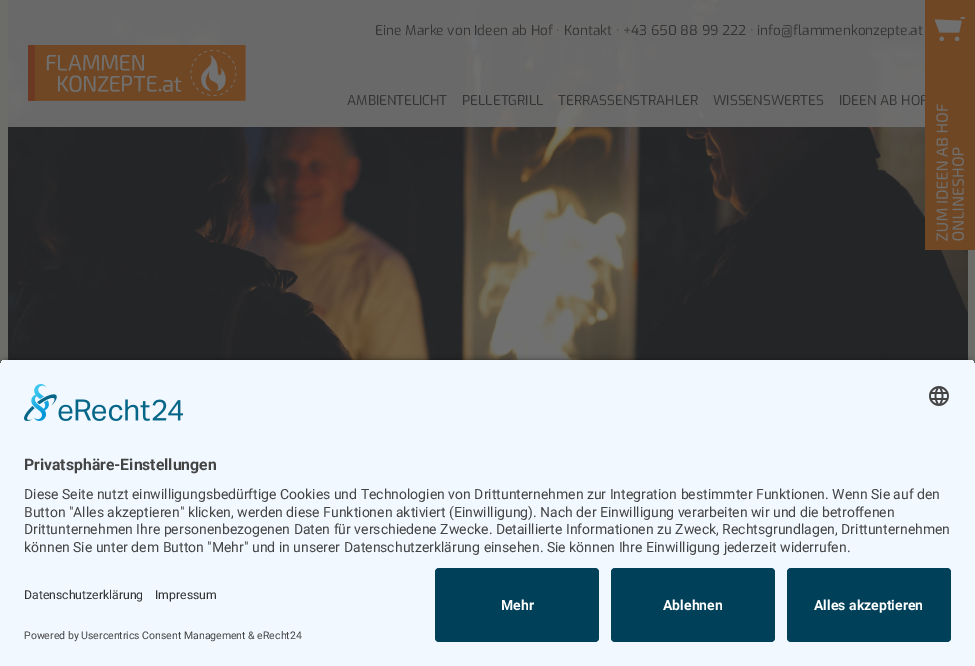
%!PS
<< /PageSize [975 666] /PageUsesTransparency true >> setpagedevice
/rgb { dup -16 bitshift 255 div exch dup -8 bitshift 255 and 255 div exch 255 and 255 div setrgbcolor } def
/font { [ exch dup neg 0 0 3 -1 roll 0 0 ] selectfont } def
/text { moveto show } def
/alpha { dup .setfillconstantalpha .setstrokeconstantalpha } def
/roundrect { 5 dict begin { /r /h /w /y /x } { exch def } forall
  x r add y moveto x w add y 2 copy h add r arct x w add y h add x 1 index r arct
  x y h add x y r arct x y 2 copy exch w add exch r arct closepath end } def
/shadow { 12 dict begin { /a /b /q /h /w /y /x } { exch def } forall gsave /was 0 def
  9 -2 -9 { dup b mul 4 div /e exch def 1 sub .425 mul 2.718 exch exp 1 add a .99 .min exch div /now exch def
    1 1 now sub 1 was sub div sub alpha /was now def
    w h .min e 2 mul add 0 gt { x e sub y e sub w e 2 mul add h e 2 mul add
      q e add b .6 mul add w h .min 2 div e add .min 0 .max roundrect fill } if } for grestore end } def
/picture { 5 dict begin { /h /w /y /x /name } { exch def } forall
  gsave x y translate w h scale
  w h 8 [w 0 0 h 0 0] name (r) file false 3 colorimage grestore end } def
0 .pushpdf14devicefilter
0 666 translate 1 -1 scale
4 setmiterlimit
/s1 { /Exo-Thin 13.6 font 16#333333 rgb } def
/s2 { /Roboto-Bold 15.75 font 16#444444 rgb } def
/s3 { /Roboto-Regular 14 font 16#444444 rgb } def
/s4 { /Roboto-Regular 12.25 font 16#333333 rgb } def
/s5 { /Roboto-Regular 10.5 font 16#444444 rgb } def
/s6 { /Roboto-Bold 14 font 16#FFFFFF rgb } def
16#6C6C69 rgb
0 0 975 666 rectfill
(pic1.raw) 8 0 960 360 picture
0.9 alpha
16#707070 rgb
8 0 917 127 rectfill
1 alpha
s1
(Eine Marke von Ideen ab Hof · Kontakt · +43 650 88 99 222 · info@flammenkonzepte.at) 375 35 text
(pic2.raw) 28 45 218 56 picture
(AMBIENTELICHT) 347 105 text
(PELLETGRILL) 462 105 text
(TERRASSENSTRAHLER) 558 105 text
(WISSENSWERTES) 713 105 text
(IDEEN AB HOF) 839 105 text
(pic3.raw) 925 0 50 250 picture
16#000000 rgb
0 362 975 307 8 3.5 0.8 shadow
gsave
8 359 moveto 967 359 lineto 971.5 359 975 362.5 975 367 curveto 975 560 lineto 0 560 lineto 0 367 lineto 0 362.5 3.5 359 8 359 curveto closepath clip newpath
16#F1F8FF rgb
0 360 975 200 rectfill
grestore
(pic4.raw) 24 384 160 37 picture
(pic5.raw) 929 386 20 20 picture
s2
(Privatsphäre-Einstellungen) 24 470 text
s3
(Diese Seite nutzt einwilligungsbedürftige Cookies und Technologien von Drittunternehmen zur Integration bestimmter Funktionen. Wenn Sie auf den) 24 499 text
(Button "Alles akzeptieren" klicken, werden diese Funktionen aktiviert \(Einwilligung\). Nach der Einwilligung verarbeiten wir und die betroffenen) 24 517 text
(Drittunternehmen Ihre personenbezogenen Daten für verschiedene Zwecke. Detaillierte Informationen zu Zweck, Rechtsgrundlagen, Drittunternehmen) 24 534 text
(können Sie unter dem Button "Mehr" und in unserer Datenschutzerklärung einsehen. Sie können Ihre Einwilligung jederzeit widerrufen.) 24 552 text
16#F1F8FF rgb
0 560 975 106 rectfill
s4
(Datenschutzerklärung) 24 599 text
(Impressum) 155 599 text
s5
(Powered by Usercentrics Consent Management & eRecht24) 24 639 text
16#004059 rgb
435 568 164 74 4 roundrect fill
s6
(Mehr) 501 610 text
16#004059 rgb
611 568 164 74 4 roundrect fill
s6
(Ablehnen) 663 610 text
16#004059 rgb
787 568 164 74 4 roundrect fill
s6
(Alles akzeptieren) 814 610 text
.poppdf14devicefilter showpage
